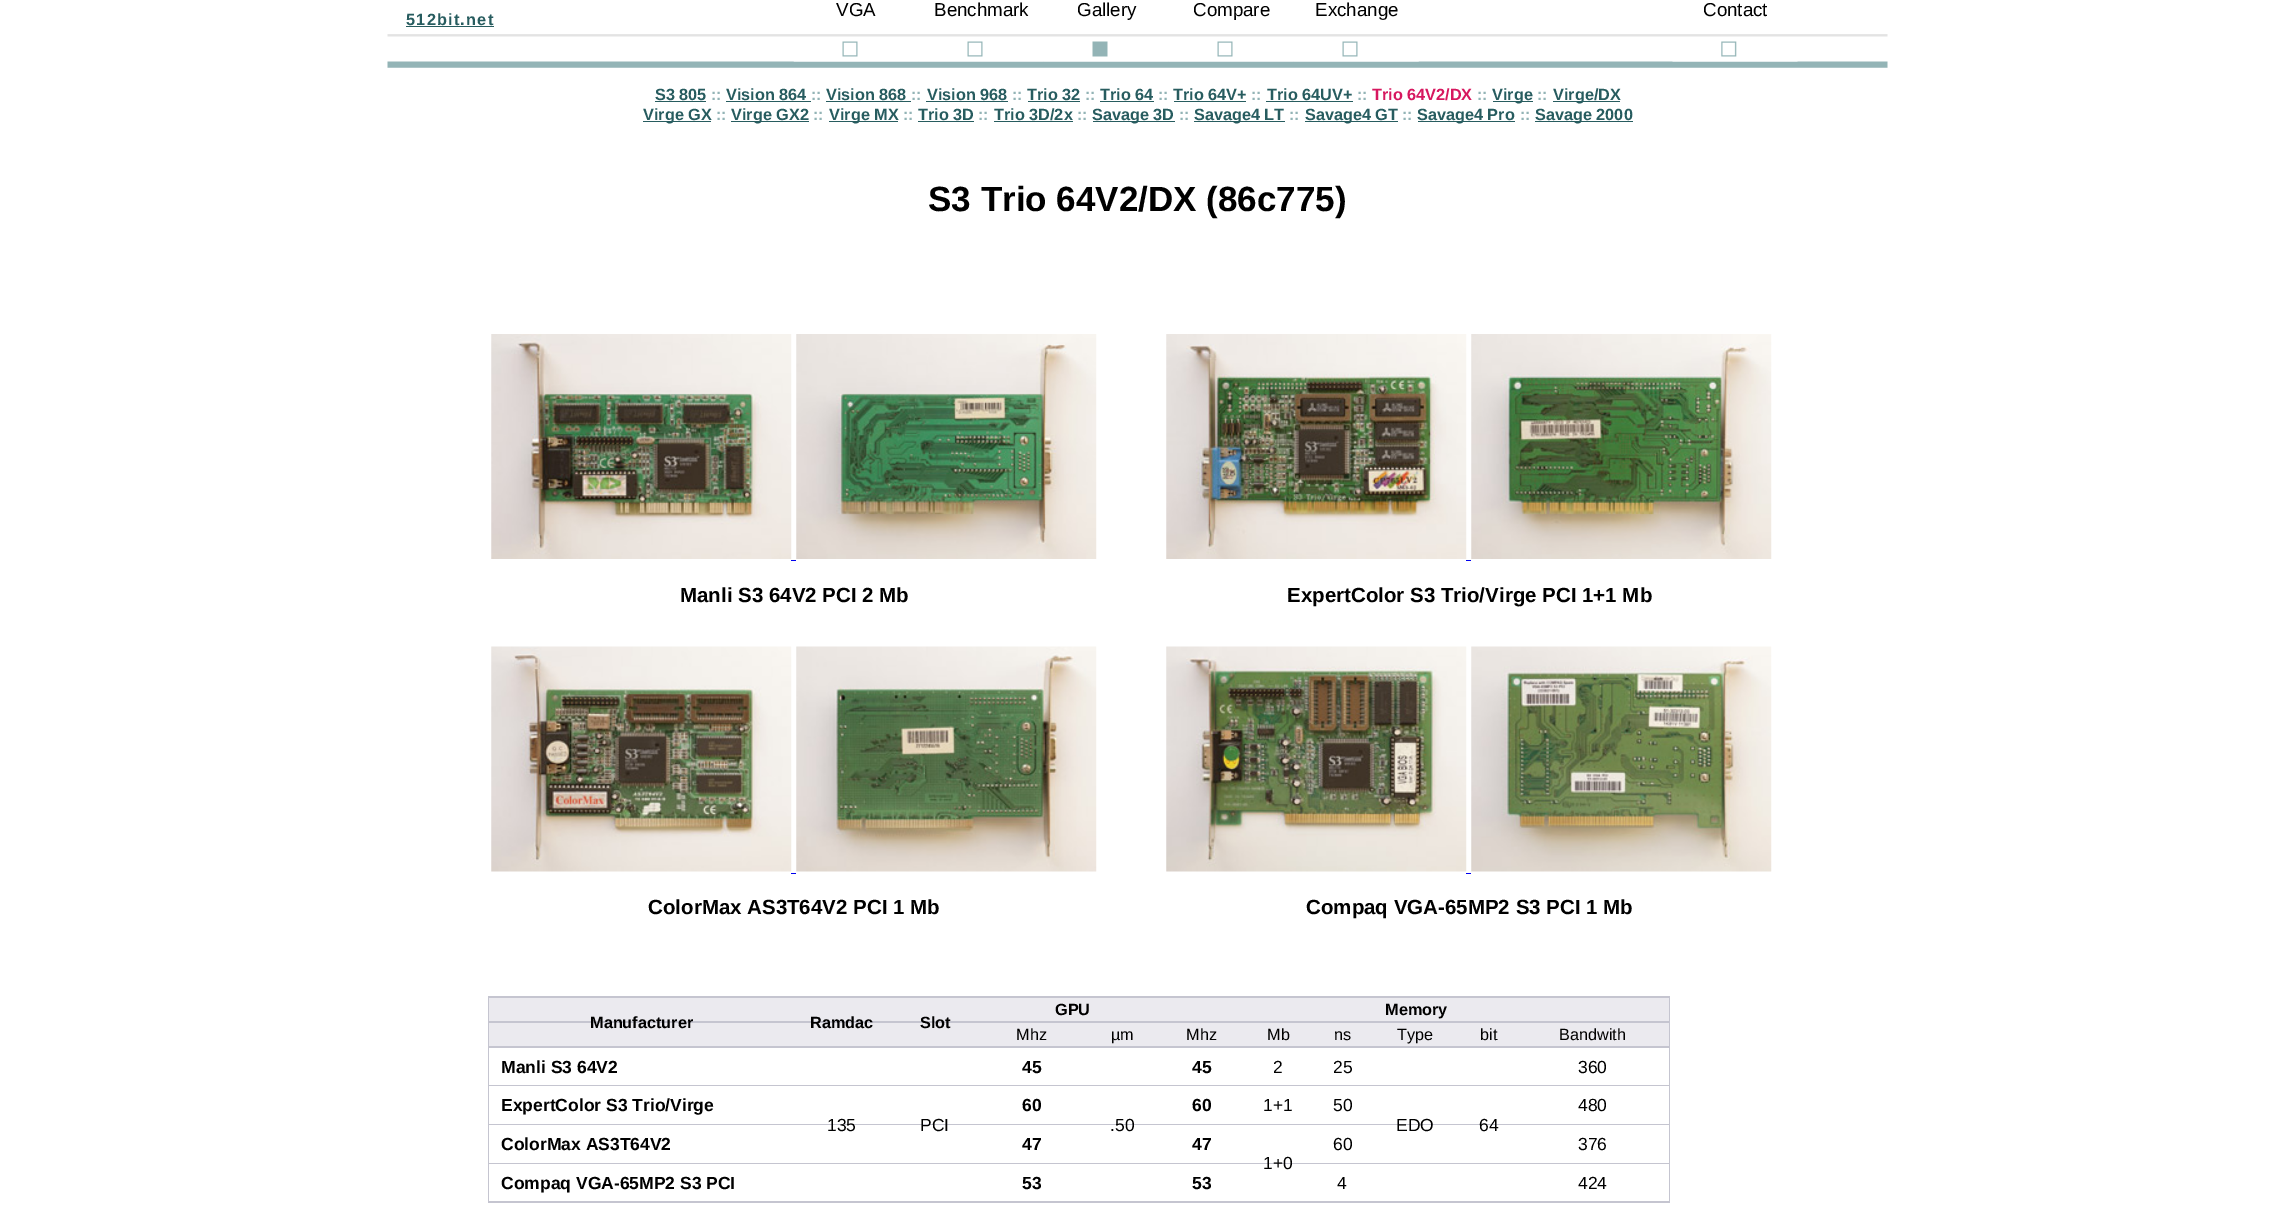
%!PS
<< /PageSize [2275 1226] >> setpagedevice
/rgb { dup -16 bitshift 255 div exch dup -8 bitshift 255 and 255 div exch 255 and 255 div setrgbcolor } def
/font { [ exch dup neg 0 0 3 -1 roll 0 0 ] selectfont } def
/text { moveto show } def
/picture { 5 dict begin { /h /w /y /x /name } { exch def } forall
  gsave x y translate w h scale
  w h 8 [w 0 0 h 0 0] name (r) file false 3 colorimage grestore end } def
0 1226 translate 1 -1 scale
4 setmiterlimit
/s1 { /LiberationSans-Regular 18.75 font 16#000000 rgb } def
/s2 { /LiberationSans-Bold 16.25 font 16#275C5F rgb } def
/s3 { /LiberationSans-Bold 16.25 font 16#93B4B6 rgb } def
/s4 { /LiberationSans-Bold 16.25 font 16#D7175F rgb } def
/s5 { /LiberationSans-Bold 35 font 16#000000 rgb } def
/s6 { /LiberationSans-Bold 20.5 font 16#000000 rgb } def
/s7 { /LiberationSans-Bold 16.25 font 16#000000 rgb } def
/s8 { /LiberationSans-Regular 16.25 font 16#000000 rgb } def
/s9 { /LiberationSans-Bold 17.5 font 16#000000 rgb } def
/s10 { /LiberationSans-Regular 17.5 font 16#000000 rgb } def
16#FFFFFF rgb
0 0 2275 1226 rectfill
/LiberationSans-Bold 16.25 font
16#275C5F rgb
406 25 moveto 1.25 0 (512bit.net) ashow
406 26 88 1 rectfill
(pic1.raw) 387 34 1501 34 picture
(pic2.raw) 793 41 126 21 picture
s1
(VGA) 836 16 text
(pic3.raw) 918 41 126 21 picture
(Benchmark) 934 16 text
(pic4.raw) 1043 41 126 21 picture
(Gallery) 1077 16 text
(pic5.raw) 1168 41 126 21 picture
(Compare) 1193 16 text
(pic3.raw) 1293 41 126 21 picture
(Exchange) 1315 16 text
(pic6.raw) 1672 41 126 21 picture
(Contact) 1703 16 text
s2
(S3 805) 655 100 text
655 101 51 1 rectfill
s3
(::) 711 100 text
s2
(Vision 864) 726 100 text
s3
(::) 811 100 text
16#275C5F rgb
726 101 85 1 rectfill
(Vision 868) 826 100 text
s3
(::) 911 100 text
16#275C5F rgb
826 101 85 1 rectfill
(Vision 968) 927 100 text
926 101 82 1 rectfill
s3
(::) 1012 100 text
s2
(Trio 32) 1027 100 text
1028 101 52 1 rectfill
s3
(::) 1085 100 text
s2
(Trio 64) 1100 100 text
1100 101 54 1 rectfill
s3
(::) 1158 100 text
s2
(Trio 64V+) 1173 100 text
1174 101 72 1 rectfill
s3
(::) 1251 100 text
s2
(Trio 64UV+) 1267 100 text
1266 101 87 1 rectfill
s3
(::) 1357 100 text
s4
(Trio 64V2/DX) 1372 100 text
s3
(::) 1477 100 text
16#275C5F rgb
1493 101 40 1 rectfill
(Virge) 1492 100 text
s3
(::) 1537 100 text
16#275C5F rgb
1553 101 67 1 rectfill
(Virge/DX) 1553 100 text
643 121 68 1 rectfill
(Virge GX) 643 120 text
s3
(::) 716 120 text
16#275C5F rgb
731 121 78 1 rectfill
(Virge GX2) 731 120 text
s3
(::) 813 120 text
16#275C5F rgb
829 121 69 1 rectfill
(Virge MX) 829 120 text
s3
(::) 903 120 text
s2
(Trio 3D) 918 120 text
918 121 56 1 rectfill
s3
(::) 978 120 text
s2
(Trio 3D/2x) 994 120 text
994 121 79 1 rectfill
s3
(::) 1077 120 text
16#275C5F rgb
1093 121 82 1 rectfill
(Savage 3D) 1092 120 text
s3
(::) 1179 120 text
16#275C5F rgb
1194 121 91 1 rectfill
(Savage4 LT) 1194 120 text
s3
(::) 1289 120 text
16#275C5F rgb
1305 121 93 1 rectfill
(Savage4 GT) 1305 120 text
s3
(::) 1402 120 text
16#275C5F rgb
1418 121 97 1 rectfill
(Savage4 Pro) 1417 120 text
s3
(::) 1520 120 text
16#275C5F rgb
1535 121 98 1 rectfill
(Savage 2000) 1535 120 text
s5
(S3 Trio 64V2/DX \(86c775\)) 928 211 text
(pic7.raw) 491 334 301 225 picture
(pic8.raw) 796 334 301 225 picture
16#0000EE rgb
791 560 5 1 rectfill
s6
(Manli S3 64V2 PCI 2 Mb) 680 602 text
(pic9.raw) 1166 334 301 225 picture
(pic10.raw) 1471 334 301 225 picture
16#0000EE rgb
1466 560 5 1 rectfill
s6
(ExpertColor S3 Trio/Virge PCI 1+1 Mb) 1287 602 text
(pic11.raw) 491 646 301 226 picture
(pic12.raw) 796 646 301 226 picture
16#0000EE rgb
791 873 5 1 rectfill
s6
(ColorMax AS3T64V2 PCI 1 Mb) 648 914 text
(pic13.raw) 1166 646 301 226 picture
(pic14.raw) 1471 646 301 226 picture
16#0000EE rgb
1466 873 5 1 rectfill
s6
(Compaq VGA-65MP2 S3 PCI 1 Mb) 1306 914 text
16#C5C5D0 rgb
488 996 1182 207 rectfill
16#EBEAEF rgb
489 998 1180 23 rectfill
s7
(GPU) 1055 1015 text
(Memory) 1385 1015 text
16#EBEAEF rgb
489 1023 1180 23 rectfill
s7
(Manufacturer) 590 1028 text
(Ramdac) 810 1028 text
(Slot) 920 1028 text
s8
(Mhz) 1016 1040 text
(µm) 1111 1040 text
(Mhz) 1186 1040 text
(Mb) 1267 1040 text
(ns) 1334 1040 text
(Type) 1397 1040 text
(bit) 1480 1040 text
(Bandwith) 1559 1040 text
16#FFFFFF rgb
489 1048 1180 37 rectfill
s9
(Manli S3 64V2) 501 1073 text
(45) 1022 1073 text
(45) 1192 1073 text
s10
(2) 1273 1073 text
(25) 1333 1073 text
(360) 1578 1073 text
16#FFFFFF rgb
489 1086 1180 38 rectfill
489 1125 1180 38 rectfill
s10
(135) 827 1131 text
(PCI) 920 1131 text
(.50) 1110 1131 text
(EDO) 1396 1131 text
(64) 1479 1131 text
s9
(ExpertColor S3 Trio/Virge) 501 1111 text
(60) 1022 1111 text
(60) 1192 1111 text
s10
(1+1) 1263 1111 text
(50) 1333 1111 text
(480) 1578 1111 text
s9
(ColorMax AS3T64V2) 501 1150 text
(47) 1022 1150 text
(47) 1192 1150 text
s10
(60) 1333 1150 text
(376) 1578 1150 text
16#FFFFFF rgb
489 1164 1180 37 rectfill
s10
(1+0) 1263 1169 text
s9
(Compaq VGA-65MP2 S3 PCI) 501 1189 text
(53) 1022 1189 text
(53) 1192 1189 text
s10
(4) 1337 1189 text
(424) 1578 1189 text
showpage
